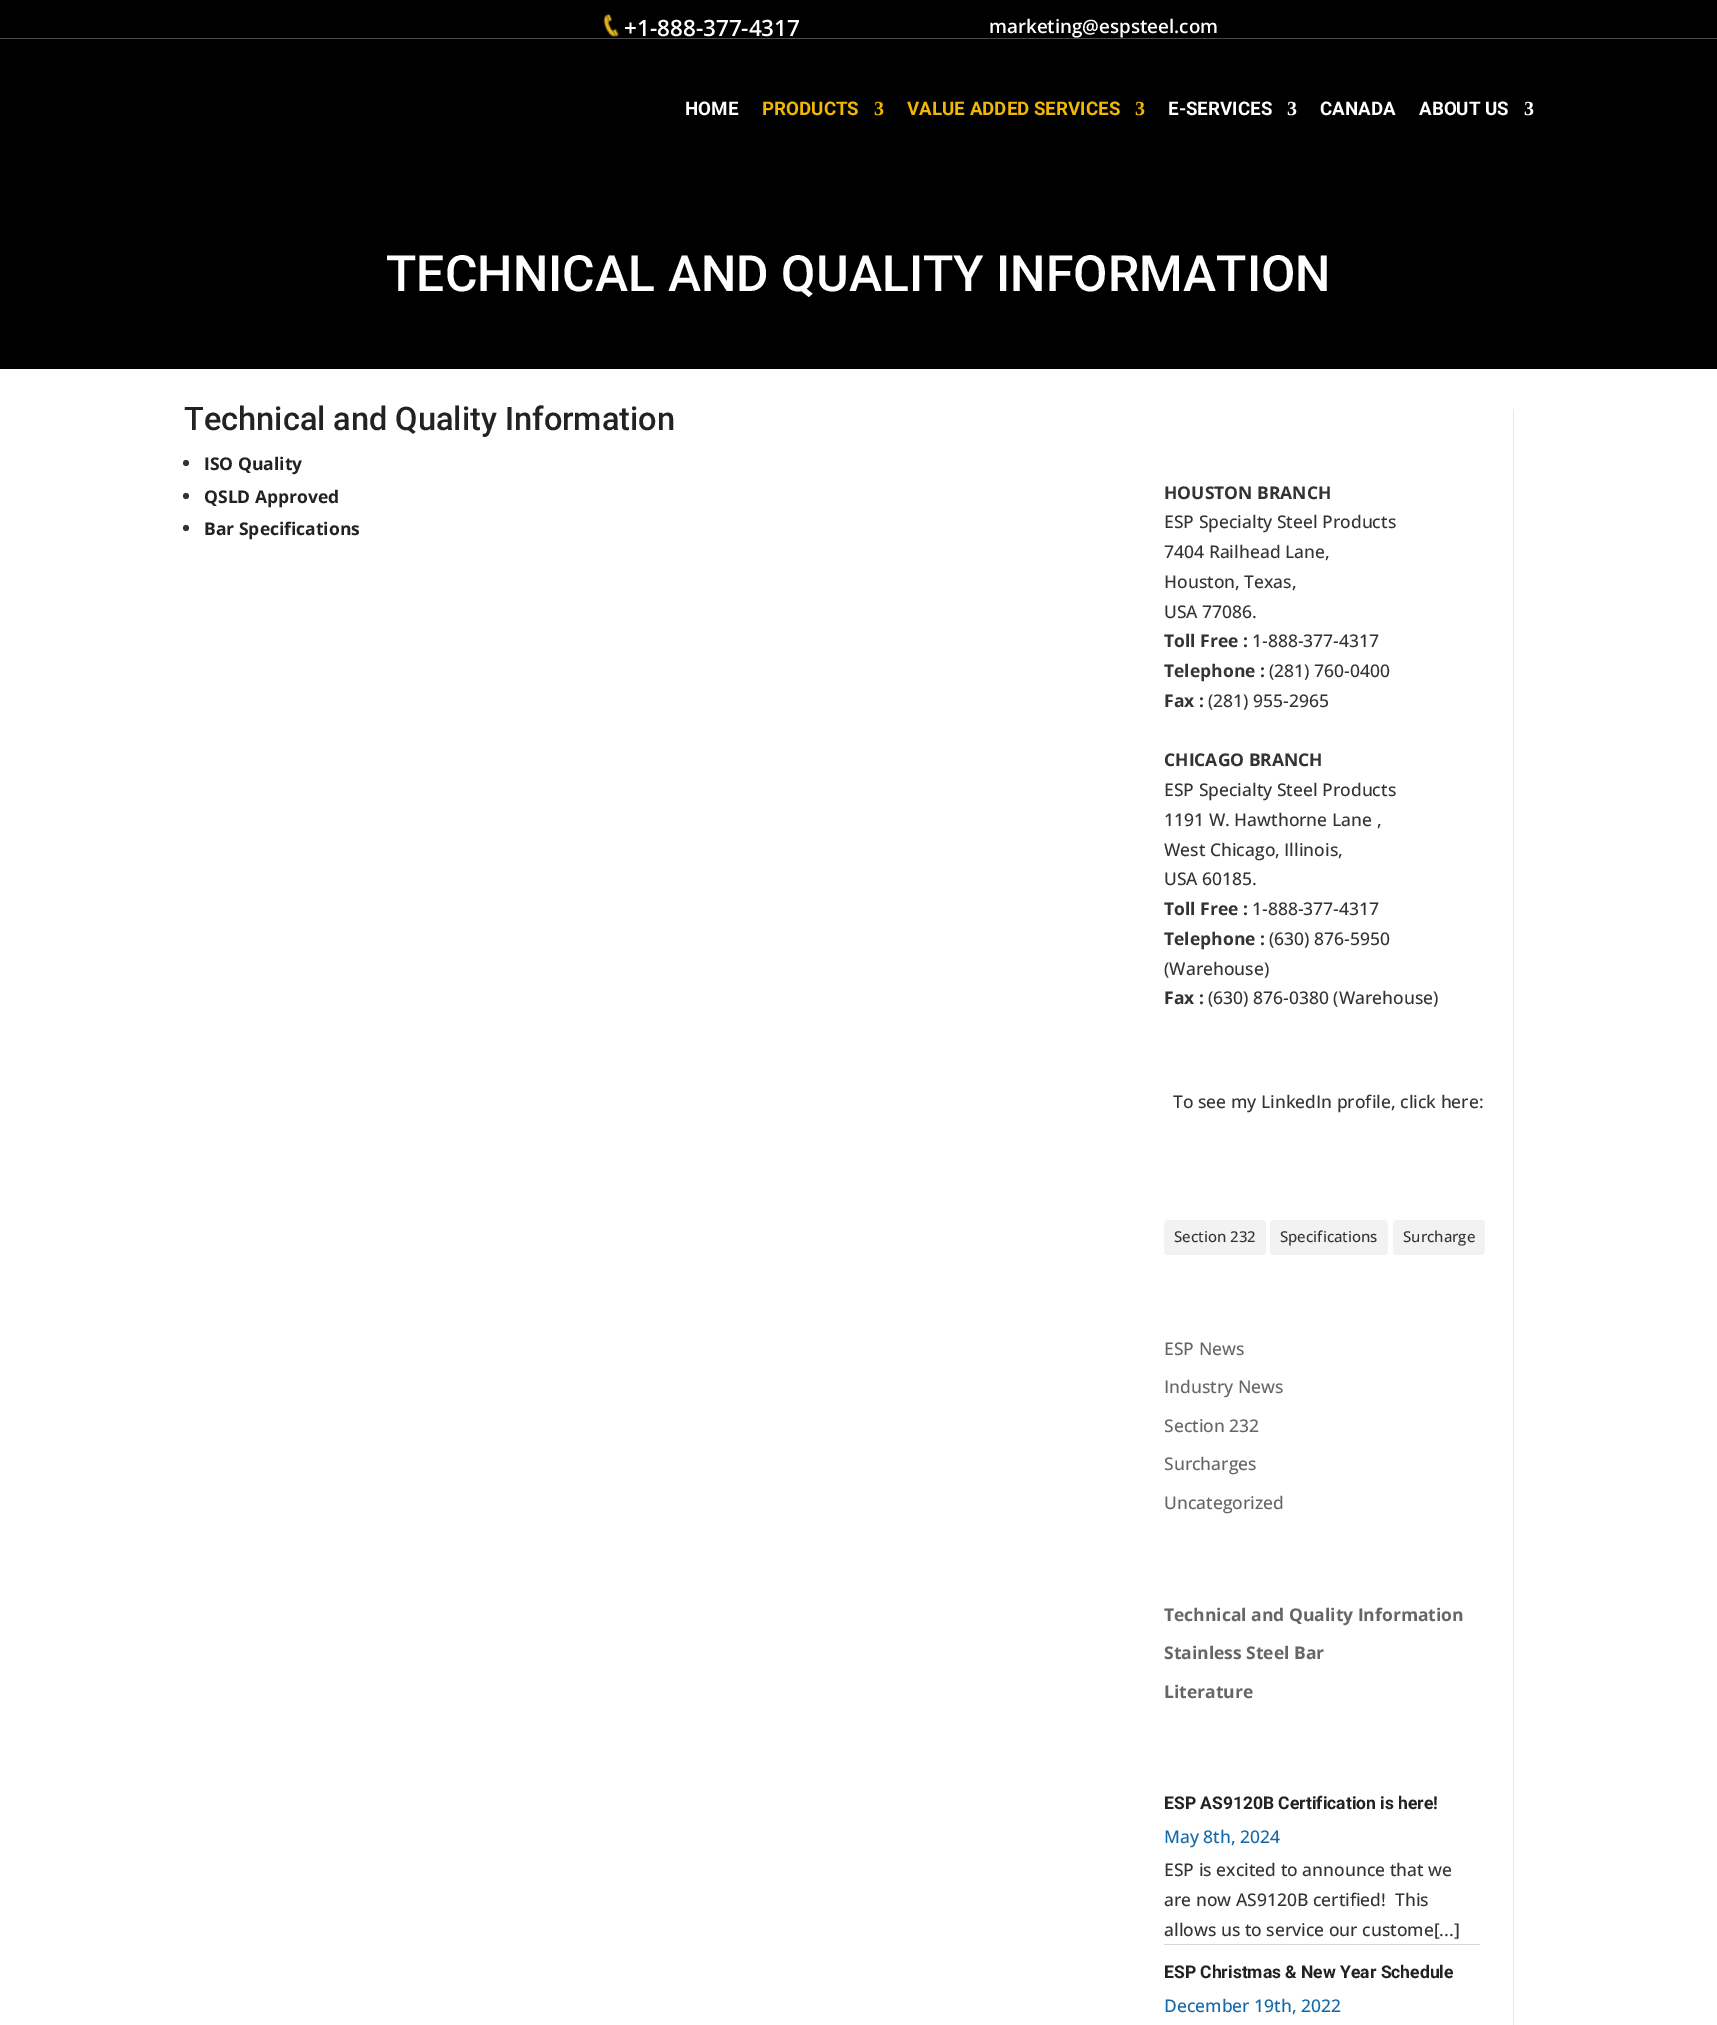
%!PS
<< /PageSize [1717 2025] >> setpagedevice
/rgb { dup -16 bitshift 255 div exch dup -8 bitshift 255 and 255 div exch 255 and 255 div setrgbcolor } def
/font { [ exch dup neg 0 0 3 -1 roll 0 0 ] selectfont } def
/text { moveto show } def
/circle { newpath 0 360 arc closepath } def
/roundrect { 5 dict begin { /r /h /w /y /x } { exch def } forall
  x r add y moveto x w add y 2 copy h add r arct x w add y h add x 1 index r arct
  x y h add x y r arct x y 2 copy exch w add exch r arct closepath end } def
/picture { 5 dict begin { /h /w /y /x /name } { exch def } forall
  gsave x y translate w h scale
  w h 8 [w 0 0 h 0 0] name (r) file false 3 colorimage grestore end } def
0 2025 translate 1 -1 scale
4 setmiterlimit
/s1 { /OpenSans-SemiBold 22.5 font 16#FFFFFF rgb } def
/s2 { /OpenSans-SemiBold 18.75 font 16#FFFFFF rgb } def
/s3 { /Roboto-Bold 18.75 font 16#FFFFFF rgb } def
/s4 { /Roboto-Bold 18.75 font 16#F1B706 rgb } def
/s5 { /LiberationSerif-Bold 20 font 16#F1B706 rgb } def
/s6 { /LiberationSerif-Bold 20 font 16#FFFFFF rgb } def
/s7 { /Roboto-Medium 50 font 16#FFFFFF rgb } def
/s8 { /Roboto-Medium 32.5 font 16#222222 rgb } def
/s9 { /OpenSans-Bold 17.5 font 16#222222 rgb } def
/s10 { /OpenSans-Bold 17.5 font 16#333333 rgb } def
/s11 { /OpenSans-Medium 17.5 font 16#333333 rgb } def
/s12 { /OpenSans-Medium 15 font 16#333333 rgb } def
/s13 { /OpenSans-Medium 17.5 font 16#666666 rgb } def
/s14 { /OpenSans-Bold 17.5 font 16#666666 rgb } def
/s15 { /Roboto-Bold 17.5 font 16#222222 rgb } def
/s16 { /OpenSans-Medium 17.5 font 16#1469AA rgb } def
16#FFFFFF rgb
0 0 1717 2025 rectfill
16#000000 rgb
0 0 1717 369 rectfill
16#4A4A4A rgb
0 38 1717 1 rectfill
(pic1.raw) 603 13 16 24 picture
s1
(+1-888-377-4317) 624 36 text
s2
(marketing@espsteel.com) 989 33 text
s3
(HOME) 685 115 text
s4
(PRODUCTS) 762 115 text
s5
(3) 874 115 text
s4
(VALUE ADDED SERVICES) 907 115 text
s5
(3) 1135 115 text
s3
(E-SERVICES) 1168 115 text
s6
(3) 1287 115 text
s3
(CANADA) 1320 115 text
(ABOUT US) 1419 115 text
s6
(3) 1524 115 text
s7
(TECHNICAL AND QUALITY INFORMATION) 386 291 text
s8
(Technical and Quality Information) 184 430 text
16#333333 rgb
186 463 3 circle fill
s9
(ISO Quality) 204 470 text
16#333333 rgb
186 496 3 circle fill
s9
(QSLD Approved) 204 503 text
16#333333 rgb
186 528 3 circle fill
s9
(Bar Specifications) 204 535 text
16#E6E6E6 rgb
1513 409 1 1616 rectfill
s10
(HOUSTON BRANCH) 1164 499 text
s11
(ESP Specialty Steel Products) 1164 528 text
(7404 Railhead Lane,) 1164 558 text
(Houston, Texas,) 1164 588 text
(USA 77086.) 1164 618 text
s10
(Toll Free :) 1164 647 text
s11
(1-888-377-4317) 1252 647 text
s10
(Telephone :) 1164 677 text
s11
(\(281\) 760-0400) 1269 677 text
s10
(Fax :) 1164 707 text
s11
(\(281\) 955-2965) 1208 707 text
s10
(CHICAGO BRANCH) 1164 766 text
s11
(ESP Specialty Steel Products) 1164 796 text
(1191 W. Hawthorne Lane ,) 1164 826 text
(West Chicago, Illinois,) 1164 856 text
(USA 60185.) 1164 885 text
s10
(Toll Free :) 1164 915 text
s11
(1-888-377-4317) 1252 915 text
s10
(Telephone :) 1164 945 text
s11
(\(630\) 876-5950) 1269 945 text
(\(Warehouse\)) 1164 975 text
s10
(Fax :) 1164 1004 text
s11
(\(630\) 876-0380 \(Warehouse\)) 1208 1004 text
(To see my LinkedIn profile, click here:) 1173 1108 text
16#F2F2F2 rgb
1164 1220 102 35 4 roundrect fill
s12
(Section 232) 1174 1242 text
16#F2F2F2 rgb
1270 1220 118 35 4 roundrect fill
s12
(Specifications) 1280 1242 text
16#F2F2F2 rgb
1393 1220 92 35 4 roundrect fill
s12
(Surcharge) 1403 1242 text
s13
(ESP News) 1164 1355 text
(Industry News) 1164 1393 text
(Section 232) 1164 1432 text
(Surcharges) 1164 1470 text
(Uncategorized) 1164 1509 text
s14
(Technical and Quality Information) 1164 1621 text
(Stainless Steel Bar) 1164 1659 text
(Literature) 1164 1698 text
16#D5D5D5 rgb
1164 1944 316 1 rectfill
s15
(ESP AS9120B Certification is here!) 1164 1809 text
s16
(May 8th, 2024) 1164 1843 text
s11
(ESP is excited to announce that we) 1164 1876 text
(are now AS9120B certified!  This) 1164 1906 text
(allows us to service our custome[...]) 1164 1936 text
s15
(ESP Christmas & New Year Schedule) 1164 1978 text
s16
(December 19th, 2022) 1164 2012 text
showpage
